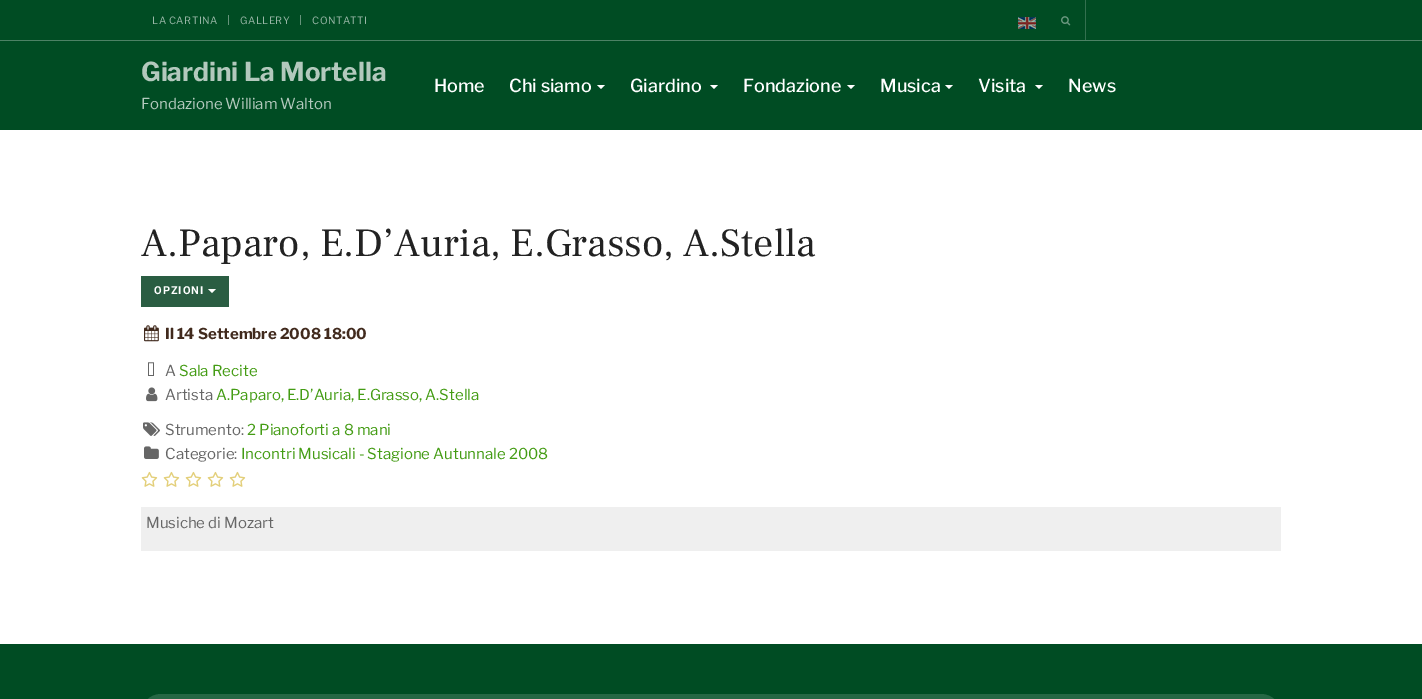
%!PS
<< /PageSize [1422 699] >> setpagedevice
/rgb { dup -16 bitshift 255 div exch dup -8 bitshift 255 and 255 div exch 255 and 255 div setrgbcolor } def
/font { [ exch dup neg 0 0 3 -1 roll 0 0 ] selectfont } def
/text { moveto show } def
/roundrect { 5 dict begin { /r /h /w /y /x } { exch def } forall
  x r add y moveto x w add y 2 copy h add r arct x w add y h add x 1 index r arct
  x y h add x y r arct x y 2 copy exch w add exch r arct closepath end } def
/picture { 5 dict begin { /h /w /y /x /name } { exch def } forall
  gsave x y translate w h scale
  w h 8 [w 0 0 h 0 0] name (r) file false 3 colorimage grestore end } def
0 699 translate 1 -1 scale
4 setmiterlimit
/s1 { /LibreFranklin-Bold 26 font 16#B3C9BD rgb } def
/s2 { /LibreFranklin-Regular 15 font 16#B3C9BD rgb } def
/s3 { /LibreFranklin-Medium 18 font 16#FFFFFF rgb } def
/s4 { /FrankRuhlLibre-Regular 40 font 16#222222 rgb } def
/s5 { /LibreFranklin-Bold 15 font 16#412A1D rgb } def
/s6 { /LibreFranklin-Regular 15 font 16#666666 rgb } def
/s7 { /LibreFranklin-Regular 15 font 16#449C14 rgb } def
16#FFFFFF rgb
0 0 1422 699 rectfill
16#004C23 rgb
0 0 1422 40 rectfill
16#4D8265 rgb
0 40 1422 1 rectfill
/LibreFranklin-Regular 10 font
16#99B7A7 rgb
152 24 moveto 0.5 0 (LA CARTINA) ashow
16#66947B rgb
228 15 1 10 rectfill
16#99B7A7 rgb
240 24 moveto 0.5 0 (GALLERY) ashow
16#66947B rgb
300 15 1 10 rectfill
16#99B7A7 rgb
312 24 moveto 0.5 0 (CONTATTI) ashow
(pic1.raw) 1018 17 18 12 picture
16#33704F rgb
1085 0 1 40 rectfill
(pic2.raw) 1061 16 10 10 picture
16#004C23 rgb
0 41 1422 89 rectfill
s1
(Giardini La Mortella) 141 81 text
s2
(Fondazione William Walton) 141 109 text
s3
(Home) 434 92 text
(Chi siamo) 509 92 text
597 85 moveto 605 85 lineto 601 89 lineto closepath fill
(Giardino) 630 92 text
710 85 moveto 718 85 lineto 714 89 lineto closepath fill
(Fondazione) 743 92 text
847 85 moveto 855 85 lineto 851 89 lineto closepath fill
(Musica) 880 92 text
945 85 moveto 953 85 lineto 949 89 lineto closepath fill
(Visita) 978 92 text
1035 85 moveto 1043 85 lineto 1039 89 lineto closepath fill
(News) 1068 92 text
s4
(A.Paparo, E.D’Auria, E.Grasso, A.Stella) 141 256 text
16#2A5D42 rgb
141 276 88 31 rectfill
/Roboto-Bold 11 font
16#FFFFFF rgb
154 294 moveto 1 0 (OPZIONI) ashow
208 289 moveto 216 289 lineto 212 293 lineto closepath fill
(pic3.raw) 144 325 15 17 picture
s5
(Il 14 Settembre 2008 18:00) 165 339 text
(pic4.raw) 148 362 6 14 picture
s6
(A) 165 376 text
s7
(Sala Recite) 179 376 text
(pic5.raw) 146 387 12 15 picture
s6
(Artista) 165 400 text
s7
(A.Paparo, E.D’Auria, E.Grasso, A.Stella) 216 400 text
(pic6.raw) 143 422 17 14 picture
s6
(Strumento:) 165 435 text
s7
(2 Pianoforti a 8 mani) 247 435 text
(pic7.raw) 144 446 15 13 picture
s6
(Categorie:) 165 459 text
s7
(Incontri Musicali - Stagione Autunnale 2008) 241 459 text
(pic8.raw) 141 471 17 16 picture
(pic8.raw) 163 471 17 16 picture
(pic8.raw) 185 471 17 16 picture
(pic8.raw) 207 471 17 16 picture
(pic8.raw) 229 471 17 16 picture
16#EFEFEF rgb
141 507 1140 44 rectfill
s6
(Musiche di Mozart) 146 528 text
16#004C23 rgb
0 644 1422 55 rectfill
16#266744 rgb
141 694 1140 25 20 roundrect fill
showpage
